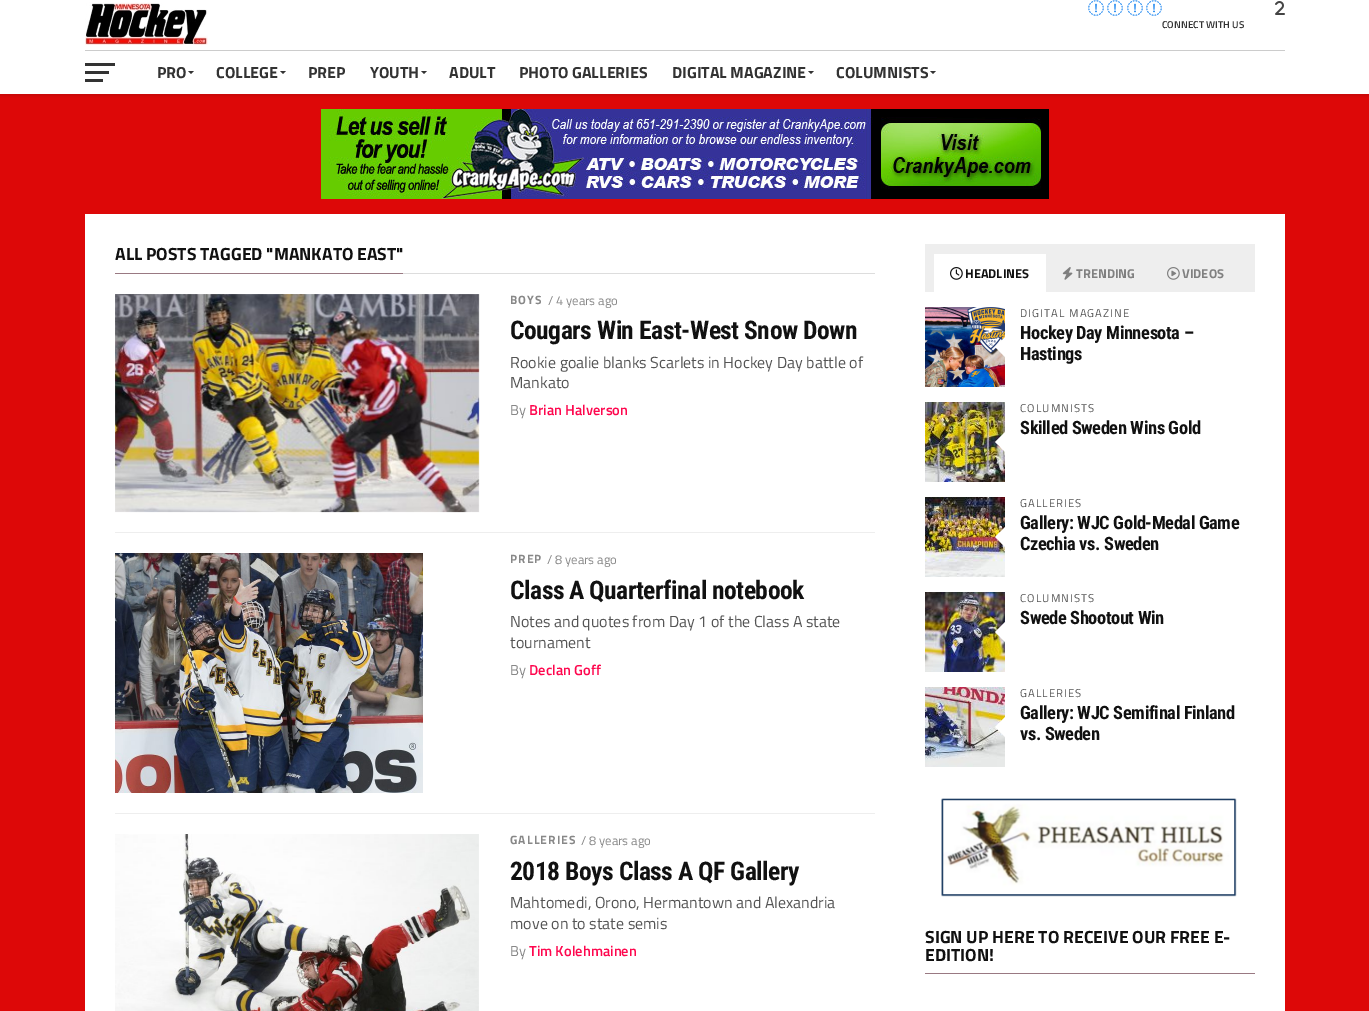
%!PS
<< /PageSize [1369 1011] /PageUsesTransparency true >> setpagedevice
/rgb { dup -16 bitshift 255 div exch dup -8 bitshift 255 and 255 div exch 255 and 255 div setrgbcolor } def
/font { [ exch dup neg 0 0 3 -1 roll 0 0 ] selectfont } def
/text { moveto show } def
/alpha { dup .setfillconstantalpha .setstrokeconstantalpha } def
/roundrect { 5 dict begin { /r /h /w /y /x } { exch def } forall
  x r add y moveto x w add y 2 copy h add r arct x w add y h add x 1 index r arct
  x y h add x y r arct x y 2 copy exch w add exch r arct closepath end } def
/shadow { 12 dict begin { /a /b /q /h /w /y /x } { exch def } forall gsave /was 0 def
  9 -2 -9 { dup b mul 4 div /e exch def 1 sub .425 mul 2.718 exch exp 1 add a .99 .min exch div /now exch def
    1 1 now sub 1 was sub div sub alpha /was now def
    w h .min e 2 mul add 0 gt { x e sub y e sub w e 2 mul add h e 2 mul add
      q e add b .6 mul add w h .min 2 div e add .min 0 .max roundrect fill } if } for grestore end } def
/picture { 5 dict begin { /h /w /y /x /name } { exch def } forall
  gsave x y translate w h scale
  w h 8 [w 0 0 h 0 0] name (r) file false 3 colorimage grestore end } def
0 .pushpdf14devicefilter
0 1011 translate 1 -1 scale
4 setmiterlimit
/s1 { /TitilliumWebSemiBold-SemiBold 10 font 16#333333 rgb } def
/s2 { /TitilliumWeb-Bold 16 font 16#333333 rgb } def
/s3 { /TitilliumWeb-Bold 17.6 font 16#111111 rgb } def
/s4 { /TitilliumWeb-Regular 12.75 font 16#888888 rgb } def
/s5 { /TitilliumWeb-Regular 16 font 16#555555 rgb } def
/s6 { /TitilliumWeb-Regular 14.5 font 16#888888 rgb } def
/s7 { /TitilliumWebSemiBold-SemiBold 14.5 font 16#FE074E rgb } def
/s8 { /TitilliumWeb-Bold 12.75 font 16#111111 rgb } def
/s9 { /TitilliumWeb-Bold 12.75 font 16#808080 rgb } def
16#DD0808 rgb
0 0 1369 1011 rectfill
16#000000 rgb
0 2 1369 94 0 1 0.1 shadow
16#FFFFFF rgb
0 0 1369 94 rectfill
16#CCCCCC rgb
85 50 1200 1 rectfill
(pic1.raw) 85 2 123 43 picture
(pic2.raw) 1275 1 10 14 picture
(pic3.raw) 1088 0 16 16 picture
(pic3.raw) 1107 0 16 16 picture
(pic3.raw) 1127 0 16 16 picture
(pic3.raw) 1146 0 16 16 picture
s1
(CONNECT WITH US) 1162 28 text
85 63 30 3 rectfill
85 71 24 3 rectfill
85 79 18 3 rectfill
s2
(PRO) 157 78 text
188 71 moveto 194 71 lineto 191 74 lineto closepath fill
(COLLEGE) 216 78 text
280 71 moveto 286 71 lineto 283 74 lineto closepath fill
(PREP) 308 78 text
(YOUTH) 370 78 text
421 71 moveto 427 71 lineto 424 74 lineto closepath fill
(ADULT) 449 78 text
(PHOTO GALLERIES) 519 78 text
(DIGITAL MAGAZINE) 672 78 text
808 71 moveto 814 71 lineto 811 74 lineto closepath fill
(COLUMNISTS) 836 78 text
930 71 moveto 936 71 lineto 933 74 lineto closepath fill
(pic4.raw) 321 109 728 90 picture
16#FFFFFF rgb
85 214 1200 797 rectfill
16#DDDDDD rgb
403 273 472 1 rectfill
16#997982 rgb
115 273 288 1 rectfill
s3
(ALL POSTS TAGGED "MANKATO EAST") 115 260 text
(pic5.raw) 115 294 365 219 picture
/TitilliumWeb-Bold 12 font
16#888888 rgb
510 304 moveto 1.1 0 (BOYS) ashow
s4
(/ 4 years ago) 548 305 text
/RobotoCondensed-Bold 25.6 font
16#111111 rgb
510 339 moveto -0.5 0 (Cougars Win East-West Snow Down) ashow
s5
(Rookie goalie blanks Scarlets in Hockey Day battle of) 510 368 text
(Mankato) 510 388 text
s6
(By) 510 415 text
s7
(Brian Halverson) 529 415 text
16#EEEEEE rgb
115 532 760 1 rectfill
(pic6.raw) 115 553 308 240 picture
/TitilliumWeb-Bold 12 font
16#888888 rgb
510 563 moveto 1.1 0 (PREP) ashow
s4
(/ 8 years ago) 547 564 text
/RobotoCondensed-Bold 25.6 font
16#111111 rgb
510 599 moveto -0.5 0 (Class A Quarterfinal notebook) ashow
s5
(Notes and quotes from Day 1 of the Class A state) 510 627 text
(tournament) 510 648 text
s6
(By) 510 675 text
s7
(Declan Goff) 529 675 text
16#EEEEEE rgb
115 813 760 1 rectfill
(pic7.raw) 115 834 364 177 picture
/TitilliumWeb-Bold 12 font
16#888888 rgb
510 844 moveto 1.1 0 (GALLERIES) ashow
s4
(/ 8 years ago) 581 845 text
/RobotoCondensed-Bold 25.6 font
16#111111 rgb
510 880 moveto -0.5 0 (2018 Boys Class A QF Gallery) ashow
s5
(Mahtomedi, Orono, Hermantown and Alexandria) 510 908 text
(move on to state semis) 510 929 text
s6
(By) 510 956 text
s7
(Tim Kolehmainen) 529 956 text
16#EEEEEE rgb
925 244 330 48 rectfill
16#FFFFFF rgb
934 254 112 38 rectfill
(pic8.raw) 950 267 13 13 picture
s8
(HEADLINES) 965 278 text
(pic9.raw) 1062 267 11 13 picture
s9
(TRENDING) 1076 278 text
(pic10.raw) 1167 267 13 13 picture
(VIDEOS) 1182 278 text
(pic11.raw) 925 307 80 80 picture
16#FFFFFF rgb
1005 337 moveto 1005 357 lineto 995 347 lineto closepath fill
/TitilliumWeb-Regular 11.25 font
16#555555 rgb
1020 317 moveto 1.1 0 (DIGITAL MAGAZINE) ashow
/RobotoCondensed-Bold 18.4 font
16#111111 rgb
1020 339 moveto -0.4 0 (Hockey Day Minnesota –) ashow
1020 360 moveto -0.4 0 (Hastings) ashow
(pic12.raw) 925 402 80 80 picture
16#FFFFFF rgb
1005 432 moveto 1005 452 lineto 995 442 lineto closepath fill
/TitilliumWeb-Regular 11.25 font
16#555555 rgb
1020 412 moveto 1.1 0 (COLUMNISTS) ashow
/RobotoCondensed-Bold 18.4 font
16#111111 rgb
1020 434 moveto -0.4 0 (Skilled Sweden Wins Gold) ashow
(pic13.raw) 925 497 80 80 picture
16#FFFFFF rgb
1005 527 moveto 1005 547 lineto 995 537 lineto closepath fill
/TitilliumWeb-Regular 11.25 font
16#555555 rgb
1020 507 moveto 1.1 0 (GALLERIES) ashow
/RobotoCondensed-Bold 18.4 font
16#111111 rgb
1020 529 moveto -0.4 0 (Gallery: WJC Gold-Medal Game) ashow
1020 550 moveto -0.4 0 (Czechia vs. Sweden) ashow
(pic14.raw) 925 592 80 80 picture
16#FFFFFF rgb
1005 622 moveto 1005 642 lineto 995 632 lineto closepath fill
/TitilliumWeb-Regular 11.25 font
16#555555 rgb
1020 602 moveto 1.1 0 (COLUMNISTS) ashow
/RobotoCondensed-Bold 18.4 font
16#111111 rgb
1020 624 moveto -0.4 0 (Swede Shootout Win) ashow
(pic15.raw) 925 687 80 80 picture
16#FFFFFF rgb
1005 717 moveto 1005 737 lineto 995 727 lineto closepath fill
/TitilliumWeb-Regular 11.25 font
16#555555 rgb
1020 697 moveto 1.1 0 (GALLERIES) ashow
/RobotoCondensed-Bold 18.4 font
16#111111 rgb
1020 719 moveto -0.4 0 (Gallery: WJC Semifinal Finland) ashow
1020 740 moveto -0.4 0 (vs. Sweden) ashow
(pic16.raw) 941 798 296 99 picture
16#997982 rgb
925 973 330 1 rectfill
s3
(SIGN UP HERE TO RECEIVE OUR FREE E-) 925 943 text
(EDITION!) 925 961 text
.poppdf14devicefilter showpage
